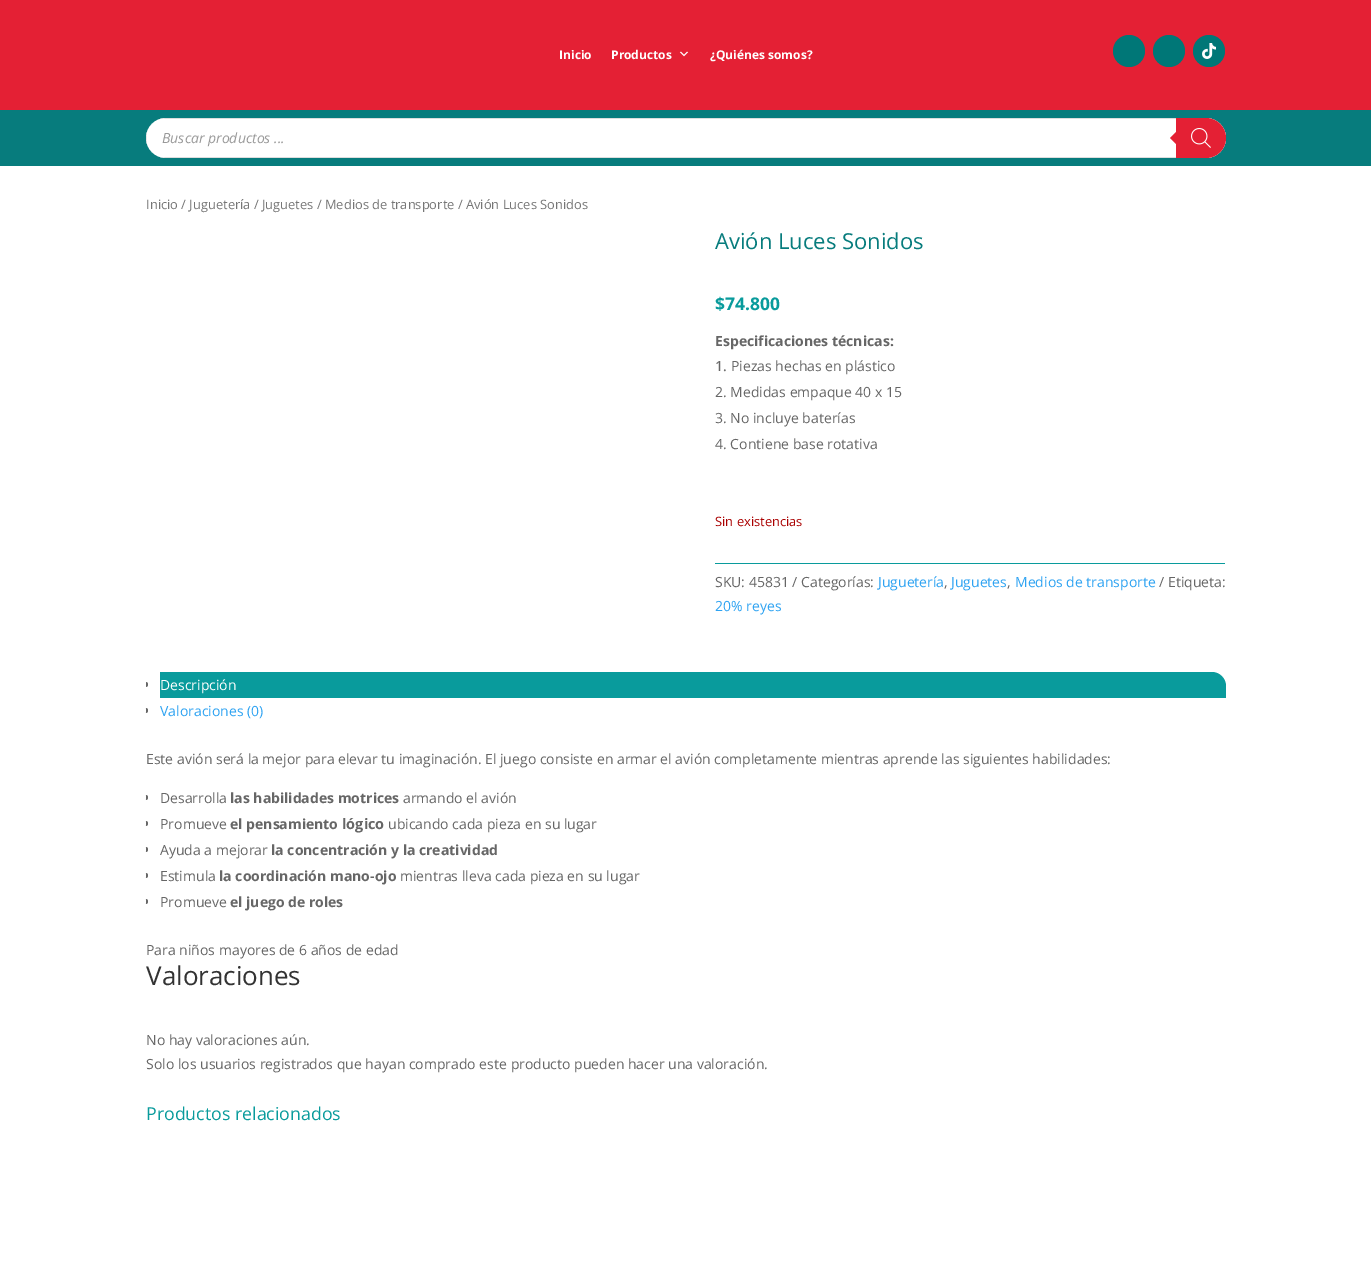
%!PS
<< /PageSize [1371 1266] >> setpagedevice
/rgb { dup -16 bitshift 255 div exch dup -8 bitshift 255 and 255 div exch 255 and 255 div setrgbcolor } def
/font { [ exch dup neg 0 0 3 -1 roll 0 0 ] selectfont } def
/text { moveto show } def
/circle { newpath 0 360 arc closepath } def
/roundrect { 5 dict begin { /r /h /w /y /x } { exch def } forall
  x r add y moveto x w add y 2 copy h add r arct x w add y h add x 1 index r arct
  x y h add x y r arct x y 2 copy exch w add exch r arct closepath end } def
/picture { 5 dict begin { /h /w /y /x /name } { exch def } forall
  gsave x y translate w h scale
  w h 8 [w 0 0 h 0 0] name (r) file false 3 colorimage grestore end } def
0 1266 translate 1 -1 scale
4 setmiterlimit
/s1 { /OpenSans-Bold 12 font 16#FFFFFF rgb } def
/s2 { /OpenSans-Italic 14 font 16#999999 rgb } def
/s3 { /OpenSans-Regular 12.9 font 16#767676 rgb } def
/s4 { /OpenSans-Regular 22 font 16#077C7D rgb } def
/s5 { /OpenSans-Bold 17.5 font 16#099B9C rgb } def
/s6 { /OpenSans-Bold 14 font 16#666666 rgb } def
/s7 { /OpenSans-Medium 14 font 16#666666 rgb } def
/s8 { /OpenSans-Regular 14 font 16#666666 rgb } def
/s9 { /OpenSans-Regular 12.9 font 16#AA0000 rgb } def
/s10 { /OpenSans-Regular 14 font 16#2EA3F2 rgb } def
/s11 { /OpenSans-Regular 14 font 16#FFFFFF rgb } def
/s12 { /OpenSans-Bold 14.5 font 16#666666 rgb } def
/s13 { /OpenSans-Regular 26 font 16#333333 rgb } def
/s14 { /OpenSans-Regular 17.75 font 16#099B9C rgb } def
16#FFFFFF rgb
0 0 1371 1266 rectfill
16#E42034 rgb
0 0 1371 110 rectfill
s1
(Inicio) 559 59 text
(Productos) 611 59 text
(pic1.raw) 679 51 10 6 picture
(¿Quiénes somos?) 710 59 text
16#007777 rgb
1129 51 16 circle fill
1169 51 16 circle fill
1209 51 16 circle fill
(pic2.raw) 1202 43 14 16 picture
16#077C7D rgb
0 110 1371 56 rectfill
16#FFFFFF rgb
146 118 1080 40 20 roundrect fill
16#DDDDDD rgb
166 158 moveto 1206 158 lineto 1212 157 lineto 160 157 lineto closepath 147 144 moveto 146 140 146 136 147 132 curveto closepath 166 118 moveto 160 119 lineto 1212 119 lineto 1206 118 lineto closepath 1225 132 moveto 1225 144 lineto 1226 140 1226 136 1225 132 curveto closepath eofill
s2
(Buscar productos ...) 162 143 text
16#E42034 rgb
1176 118 moveto 1206 118 lineto 1217 118 1226 127 1226 138 curveto 1226 149 1217 158 1206 158 curveto 1176 158 lineto closepath fill
1178 130 moveto 1178 146 lineto 1170 138 lineto closepath fill
(pic3.raw) 1191 128 20 20 picture
s3
(Inicio / Juguetería / Juguetes / Medios de transporte / Avión Luces Sonidos) 146 209 text
s4
(Avión Luces Sonidos) 715 249 text
s5
($74.800) 715 310 text
s6
(Especificaciones técnicas:) 715 346 text
s7
(1.) 715 371 text
s8
(Piezas hechas en plástico) 731 371 text
(2. Medidas empaque 40 x 15) 715 397 text
(3. No incluye baterías) 715 423 text
(4. Contiene base rotativa) 715 449 text
s9
(Sin existencias) 715 526 text
16#099B9C rgb
715 563 510 1 rectfill
s8
(SKU: 45831 / Categorías:) 715 587 text
s10
(Juguetería) 878 587 text
s8
(,) 944 587 text
s10
(Juguetes) 951 587 text
s8
(,) 1007 587 text
s10
(Medios de transporte) 1015 587 text
s8
(/ Etiqueta:) 1159 587 text
s10
(20% reyes) 715 611 text
16#099B9C rgb
160 672 moveto 1212 672 lineto 1219.5 672 1226 678.5 1226 686 curveto 1226 698 lineto 160 698 lineto closepath fill
gsave
146 672 1080 404 14 roundrect clip newpath
16#666666 rgb
146 682 moveto 145.5 682 lineto 147 682 148 683 148 684.5 curveto 148 686 147 687 145.5 687 curveto 146 687 lineto closepath fill
grestore
s11
(Descripción) 160 690 text
16#666666 rgb
146 708 moveto 145.5 708 lineto 147 708 148 709 148 710.5 curveto 148 712 147 713 145.5 713 curveto 146 713 lineto closepath fill
s10
(Valoraciones \(0\)) 160 716 text
s8
(Este avión será la mejor para elevar tu imaginación. El juego consiste en armar el avión completamente mientras aprende las siguientes habilidades:) 146 764 text
146 795 moveto 145.5 795 lineto 147 795 148 796 148 797.5 curveto 148 799 147 800 145.5 800 curveto 146 800 lineto closepath fill
(Desarrolla) 160 803 text
s6
(las habilidades motrices) 230 803 text
s8
(armando el avión) 403 803 text
146 821 moveto 145.5 821 lineto 147 821 148 822 148 823.5 curveto 148 825 147 826 145.5 826 curveto 146 826 lineto closepath fill
(Promueve) 160 829 text
s6
(el pensamiento) 230 829 text
s12
(lógico) 342 829 text
s8
(ubicando cada pieza en su lugar) 388 829 text
146 847 moveto 145.5 847 lineto 147 847 148 848 148 849.5 curveto 148 851 147 852 145.5 852 curveto 146 852 lineto closepath fill
(Ayuda a mejorar) 160 855 text
s6
(la concentración y la creatividad) 271 855 text
146 873 moveto 145.5 873 lineto 147 873 148 874 148 875.5 curveto 148 877 147 878 145.5 878 curveto 146 878 lineto closepath fill
s8
(Estimula) 160 881 text
s6
(la coordinación mano-ojo) 219 881 text
s8
(mientras lleva cada pieza en su lugar) 400 881 text
146 899 moveto 145.5 899 lineto 147 899 148 900 148 901.5 curveto 148 903 147 904 145.5 904 curveto 146 904 lineto closepath fill
(Promueve) 160 907 text
s6
(el juego de roles) 230 907 text
s8
(Para niños mayores de 6 años de edad) 146 955 text
s13
(Valoraciones) 146 985 text
s8
(No hay valoraciones aún.) 146 1045 text
gsave
146 672 1080 404 14 roundrect clip newpath
(Solo los usuarios registrados que hayan comprado este producto pueden hacer una valoración.) 146 1069 text
grestore
s14
(Productos relacionados) 146 1120 text
showpage
